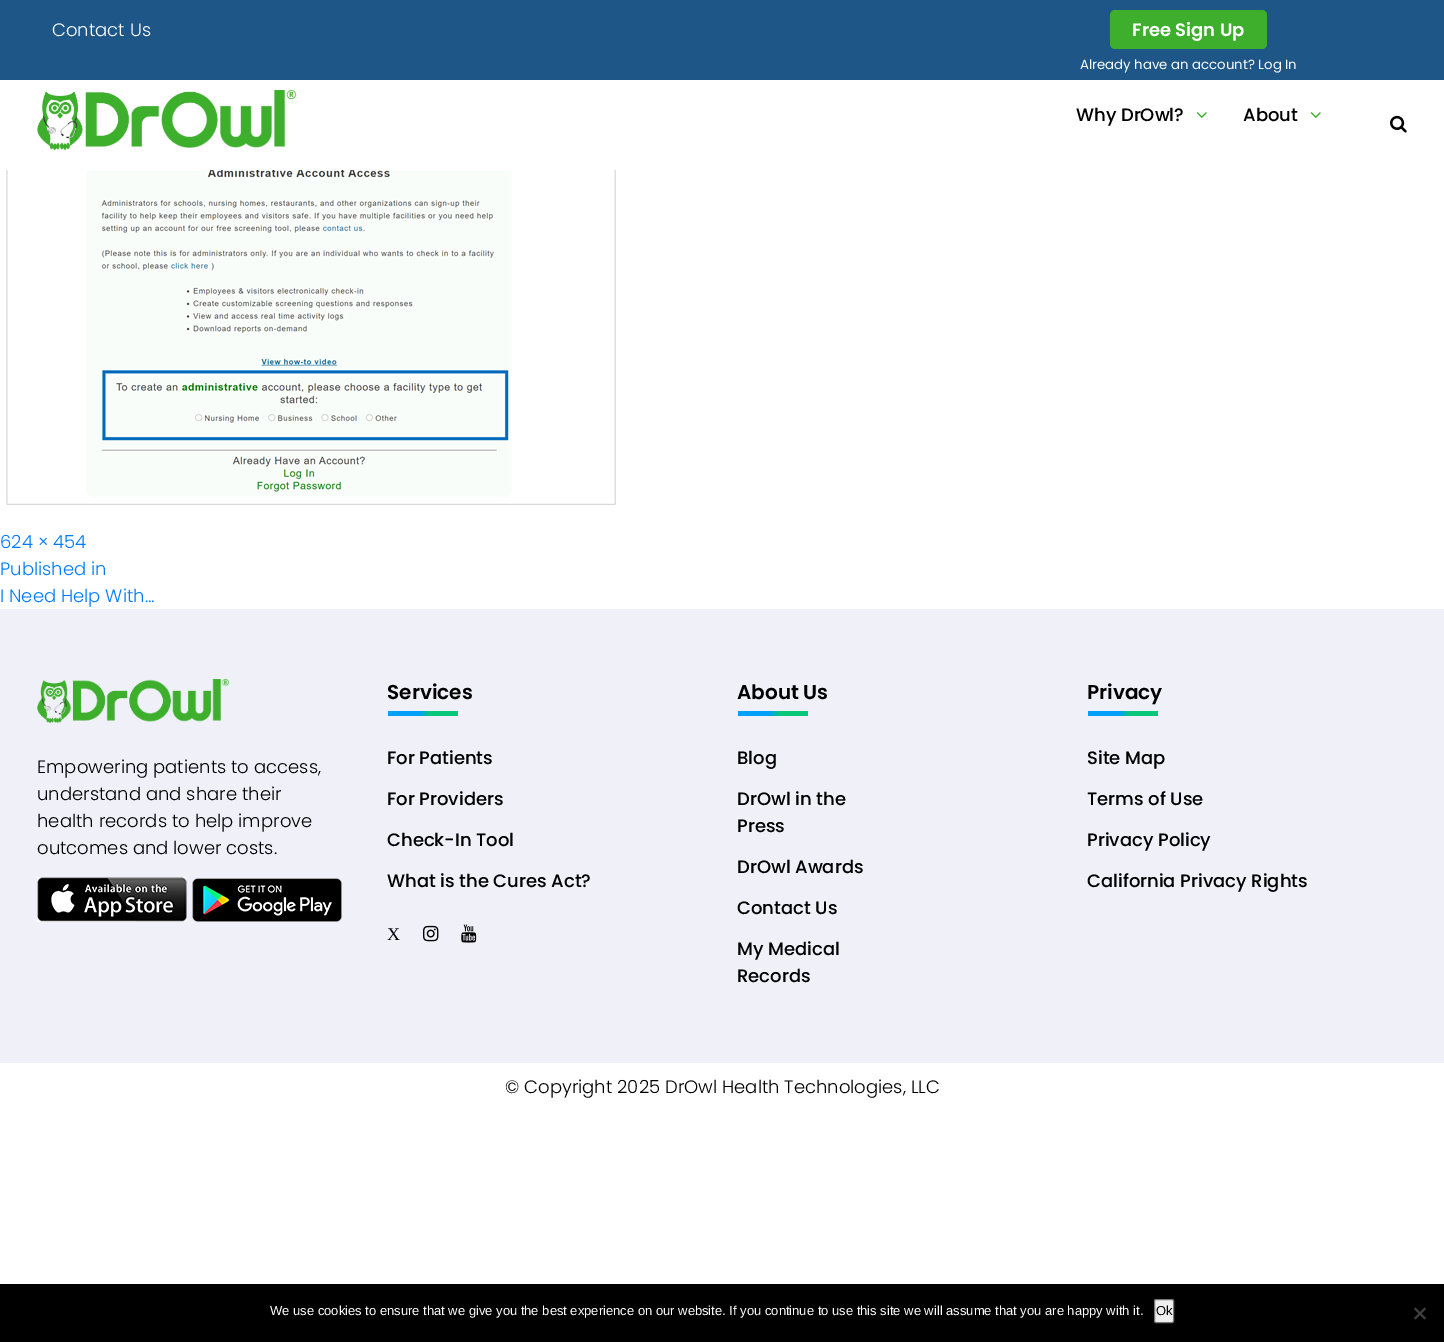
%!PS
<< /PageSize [1444 1342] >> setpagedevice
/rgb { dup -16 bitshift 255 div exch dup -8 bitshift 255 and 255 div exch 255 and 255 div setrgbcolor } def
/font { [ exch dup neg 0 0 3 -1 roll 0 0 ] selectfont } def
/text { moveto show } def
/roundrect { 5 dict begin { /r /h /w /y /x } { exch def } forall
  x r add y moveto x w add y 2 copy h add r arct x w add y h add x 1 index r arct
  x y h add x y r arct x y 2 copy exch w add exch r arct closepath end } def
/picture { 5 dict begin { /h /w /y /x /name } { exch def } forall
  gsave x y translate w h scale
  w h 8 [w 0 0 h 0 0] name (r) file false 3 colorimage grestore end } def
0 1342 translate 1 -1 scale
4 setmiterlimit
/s1 { /Poppins-Light 18 font 16#FFFFFF rgb } def
/s2 { /Poppins-SemiBold 18 font 16#FFFFFF rgb } def
/s3 { /Poppins-Regular 13.3 font 16#FFFFFF rgb } def
/s4 { /Poppins-Medium 18 font 16#000000 rgb } def
/s5 { /Poppins-Light 18 font 16#007BFF rgb } def
/s6 { /Poppins-Light 18 font 16#000000 rgb } def
/s7 { /Poppins-SemiBold 20 font 16#000000 rgb } def
/s8 { /LiberationSerif-Regular 18 font 16#000000 rgb } def
/s9 { /LiberationSans-Regular 13 font 16#FFFFFF rgb } def
/s10 { /LiberationSans-Regular 13 font 16#000000 rgb } def
16#FFFFFF rgb
0 0 1444 1342 rectfill
16#1E5688 rgb
0 0 1444 80 rectfill
s1
(Contact Us) 52 36 text
16#3DAF2C rgb
1110 10 157 39 5 roundrect fill
s2
(Free Sign Up) 1132 36 text
s3
(Already have an account? Log In) 1080 69 text
(pic1.raw) 37 90 260 61 picture
s4
(Why DrOwl?) 1076 121 text
(pic2.raw) 1196 112 11 6 picture
(About) 1243 121 text
(pic2.raw) 1310 112 11 6 picture
(pic3.raw) 1390 115 17 18 picture
(pic4.raw) 6 170 610 335 picture
s5
(624 × 454) 0 548 text
(Published in) 0 575 text
(I Need Help With…) 0 602 text
16#F0F0F8 rgb
0 609 1444 454 rectfill
(pic5.raw) 37 679 192 44 picture
s6
(Empowering patients to access,) 37 773 text
(understand and share their) 37 800 text
(health records to help improve) 37 827 text
(outcomes and lower costs.) 37 854 text
(pic6.raw) 37 877 150 45 picture
(pic7.raw) 192 878 150 44 picture
s7
(Services) 387 699 text
gsave 388 711 moveto 458 711 lineto 458 716 lineto 388 716 lineto closepath clip newpath
<< /ShadingType 2 /ColorSpace /DeviceRGB /Coords [388 714 458 714] /Extend [true true] /Function << /FunctionType 3 /Domain [0 1] /Functions [<< /FunctionType 2 /Domain [0 1] /C0 [0.004 0.627 0.976] /C1 [0.004 0.627 0.976] /N 1 >> << /FunctionType 2 /Domain [0 1] /C0 [0.004 0.627 0.976] /C1 [0.035 0.78 0.471] /N 1 >> << /FunctionType 2 /Domain [0 1] /C0 [0.035 0.78 0.471] /C1 [0.035 0.78 0.471] /N 1 >>] /Bounds [0.45 0.6] /Encode [0 1 0 1 0 1] >> >> shfill grestore
s4
(For Patients) 387 764 text
(For Providers) 387 805 text
(Check-In Tool) 387 846 text
(What is the Cures Act?) 387 887 text
s8
(X) 387 940 text
(pic8.raw) 423 925 16 17 picture
(pic9.raw) 461 924 16 19 picture
s7
(About Us) 737 699 text
gsave 738 711 moveto 808 711 lineto 808 716 lineto 738 716 lineto closepath clip newpath
<< /ShadingType 2 /ColorSpace /DeviceRGB /Coords [738 714 808 714] /Extend [true true] /Function << /FunctionType 3 /Domain [0 1] /Functions [<< /FunctionType 2 /Domain [0 1] /C0 [0.004 0.627 0.976] /C1 [0.004 0.627 0.976] /N 1 >> << /FunctionType 2 /Domain [0 1] /C0 [0.004 0.627 0.976] /C1 [0.035 0.78 0.471] /N 1 >> << /FunctionType 2 /Domain [0 1] /C0 [0.035 0.78 0.471] /C1 [0.035 0.78 0.471] /N 1 >>] /Bounds [0.45 0.6] /Encode [0 1 0 1 0 1] >> >> shfill grestore
s4
(Blog) 737 764 text
(DrOwl in the) 737 805 text
(Press) 737 832 text
(DrOwl Awards) 737 873 text
(Contact Us) 737 914 text
(My Medical) 737 955 text
(Records) 737 982 text
s7
(Privacy) 1087 699 text
gsave 1088 711 moveto 1158 711 lineto 1158 716 lineto 1088 716 lineto closepath clip newpath
<< /ShadingType 2 /ColorSpace /DeviceRGB /Coords [1088 714 1158 714] /Extend [true true] /Function << /FunctionType 3 /Domain [0 1] /Functions [<< /FunctionType 2 /Domain [0 1] /C0 [0.004 0.627 0.976] /C1 [0.004 0.627 0.976] /N 1 >> << /FunctionType 2 /Domain [0 1] /C0 [0.004 0.627 0.976] /C1 [0.035 0.78 0.471] /N 1 >> << /FunctionType 2 /Domain [0 1] /C0 [0.035 0.78 0.471] /C1 [0.035 0.78 0.471] /N 1 >>] /Bounds [0.45 0.6] /Encode [0 1 0 1 0 1] >> >> shfill grestore
s4
(Site Map) 1087 764 text
(Terms of Use) 1087 805 text
(Privacy Policy) 1087 846 text
(California Privacy Rights) 1087 887 text
s6
(© Copyright 2025 DrOwl Health Technologies, LLC) 505 1093 text
0 1284 1444 58 rectfill
s9
(We use cookies to ensure that we give you the best experience on our website. If you continue to use this site we will assume that you are happy with it.) 270 1315 text
16#EFEFEF rgb
1154.5 1299.5 19 23 1.5 roundrect gsave fill grestore
16#767676 rgb
stroke
s10
(Ok) 1156 1315 text
16#404040 rgb
1424.5 1307.5 moveto 1426 1309 lineto 1415.5 1319.5 lineto 1414 1318 lineto closepath fill
1414 1309 moveto 1415.5 1307.5 lineto 1426 1318 lineto 1424.5 1319.5 lineto closepath fill
showpage
